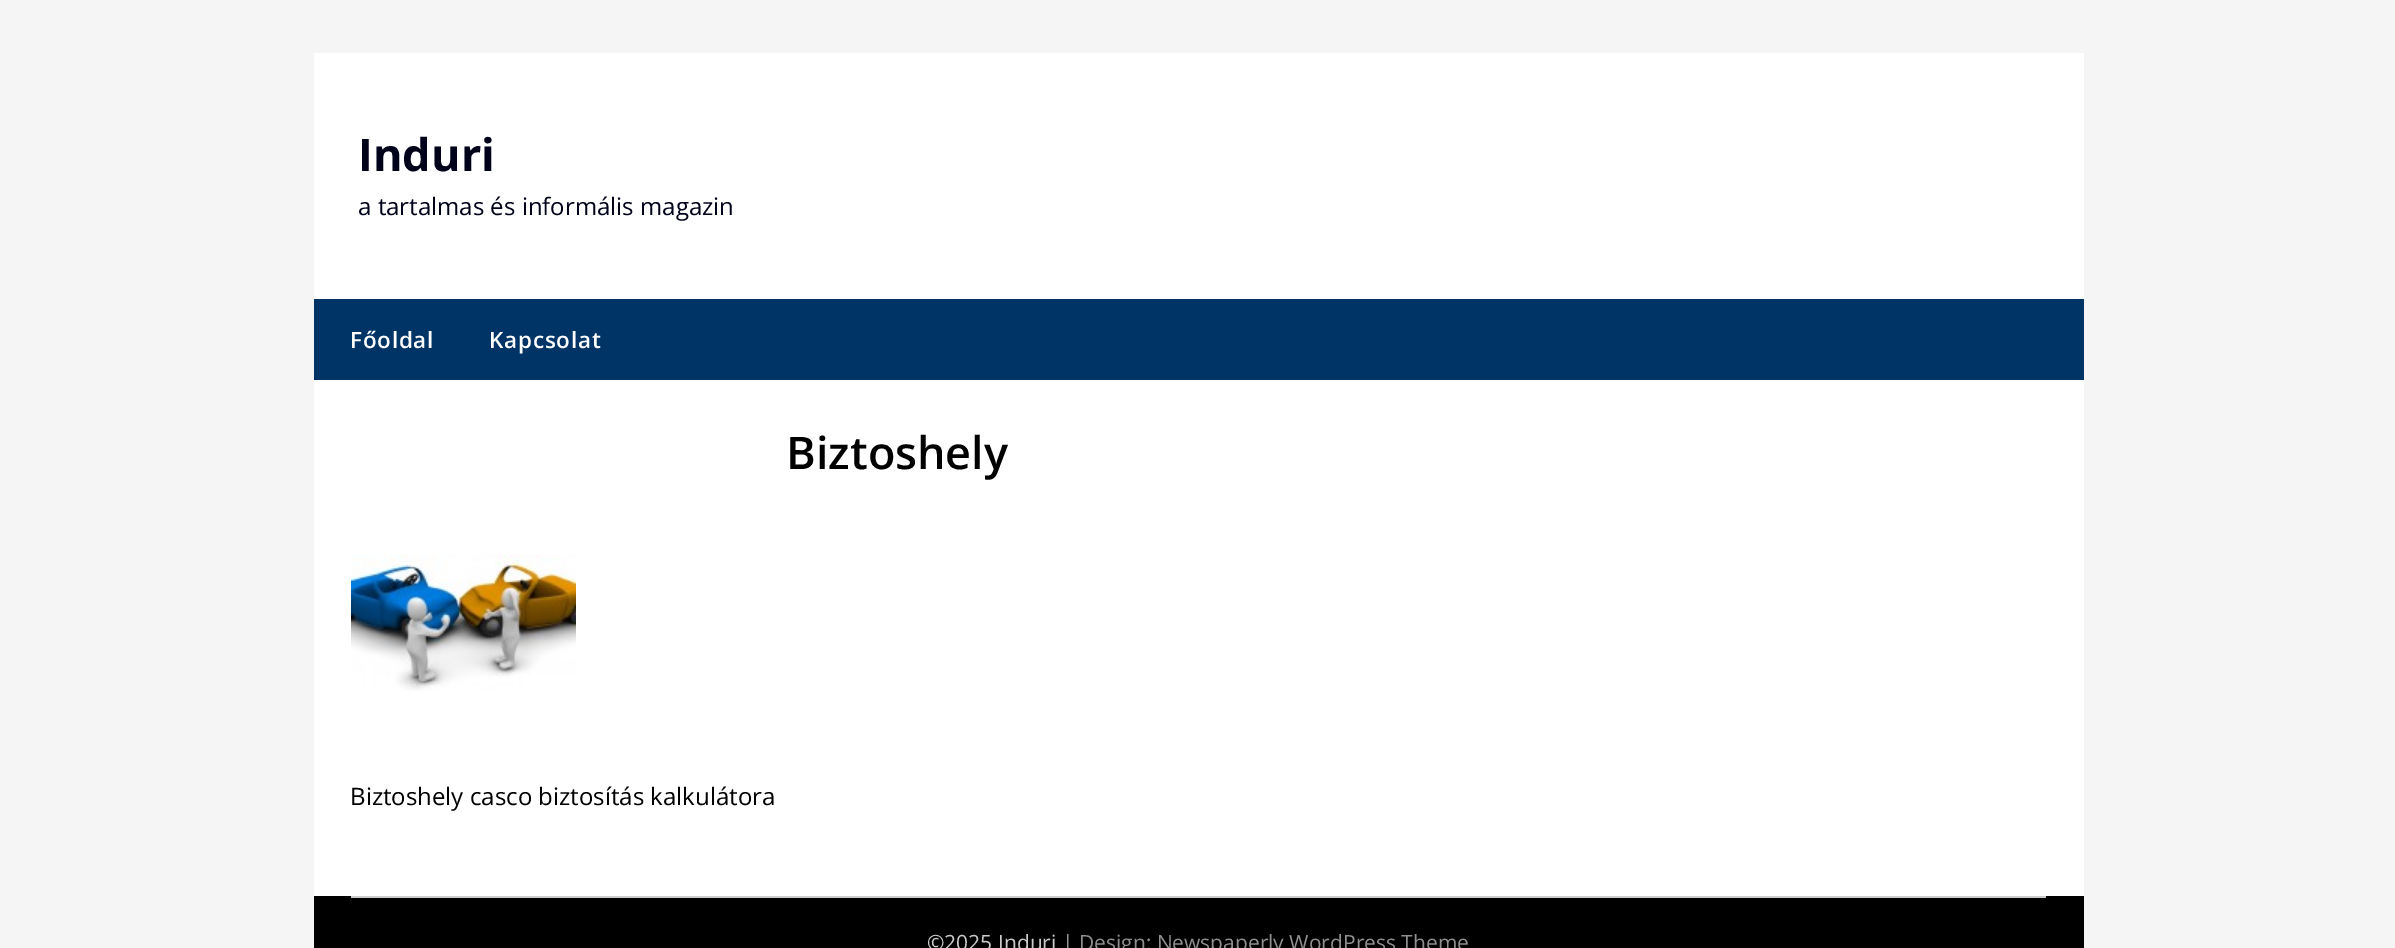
%!PS
<< /PageSize [2395 948] >> setpagedevice
/rgb { dup -16 bitshift 255 div exch dup -8 bitshift 255 and 255 div exch 255 and 255 div setrgbcolor } def
/font { [ exch dup neg 0 0 3 -1 roll 0 0 ] selectfont } def
/text { moveto show } def
/picture { 5 dict begin { /h /w /y /x /name } { exch def } forall
  gsave x y translate w h scale
  w h 8 [w 0 0 h 0 0] name (r) file false 3 colorimage grestore end } def
0 948 translate 1 -1 scale
4 setmiterlimit
/s1 { /OpenSans-Bold 45 font 16#00021A rgb } def
/s2 { /OpenSans-Regular 24 font 16#00021A rgb } def
/s3 { /OpenSans-SemiBold 45 font 16#000000 rgb } def
/s4 { /OpenSans-Regular 24 font 16#000000 rgb } def
/s5 { /OpenSans-Regular 21 font 16#CCCCCC rgb } def
/s6 { /OpenSans-Regular 21 font 16#8F8F8F rgb } def
16#F5F5F5 rgb
0 0 2395 948 rectfill
16#FFFFFF rgb
314 53 1770 246 rectfill
s1
(Induri) 358 171 text
s2
(a tartalmas és informális magazin) 358 215 text
16#003366 rgb
314 299 1770 81 rectfill
/OpenSans-SemiBold 22.5 font
16#FFFFFF rgb
350 348 moveto 0.75 0 (Főoldal) ashow
489 348 moveto 0.75 0 (Kapcsolat) ashow
314 380 1770 516 rectfill
s3
(Biztoshely) 786 469 text
(pic1.raw) 351 554 225 137 picture
s4
(Biztoshely casco biztosítás kalkulátora) 350 805 text
314 896 1770 52 rectfill
16#CCCCCC rgb
351 896 1695 2 rectfill
s5
(©2025 Induri) 927 950 text
s6
(| Design: Newspaperly WordPress Theme) 1062 950 text
showpage
